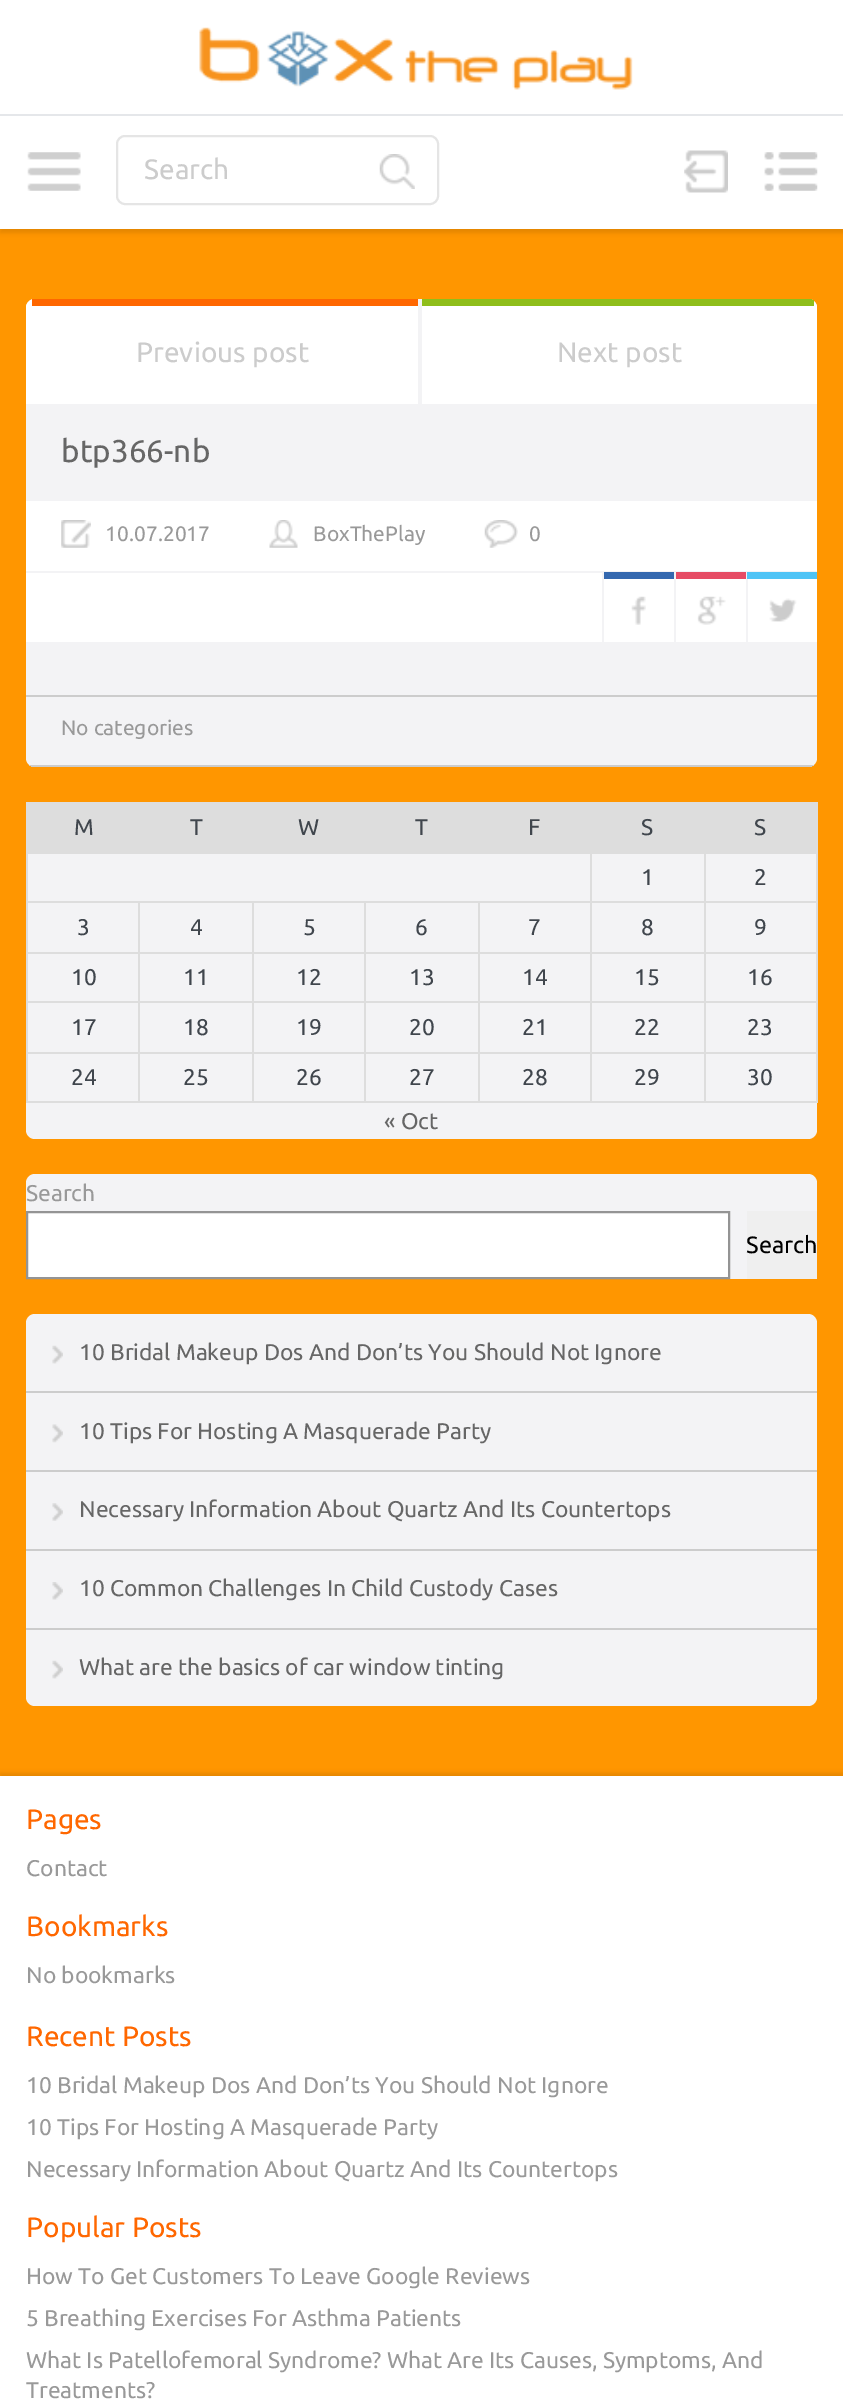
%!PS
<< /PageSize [843 2402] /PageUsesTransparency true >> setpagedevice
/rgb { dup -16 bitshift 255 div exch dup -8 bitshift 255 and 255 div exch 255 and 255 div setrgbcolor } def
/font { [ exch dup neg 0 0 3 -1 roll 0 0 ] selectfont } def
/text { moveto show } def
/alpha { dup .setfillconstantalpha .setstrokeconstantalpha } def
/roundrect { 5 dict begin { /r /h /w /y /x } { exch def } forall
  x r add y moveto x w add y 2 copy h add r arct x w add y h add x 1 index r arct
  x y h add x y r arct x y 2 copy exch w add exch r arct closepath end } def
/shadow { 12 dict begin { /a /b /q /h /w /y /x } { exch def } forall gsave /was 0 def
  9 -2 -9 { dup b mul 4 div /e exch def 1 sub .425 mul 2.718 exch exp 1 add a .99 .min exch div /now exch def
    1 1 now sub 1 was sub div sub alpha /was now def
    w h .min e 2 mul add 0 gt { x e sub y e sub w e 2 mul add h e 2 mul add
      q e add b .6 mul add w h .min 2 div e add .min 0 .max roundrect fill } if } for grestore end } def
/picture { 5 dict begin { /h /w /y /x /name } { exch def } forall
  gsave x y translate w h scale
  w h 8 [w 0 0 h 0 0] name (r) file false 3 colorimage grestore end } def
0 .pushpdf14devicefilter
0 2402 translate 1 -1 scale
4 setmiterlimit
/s1 { /Ubuntu-Regular 28 font 16#CCCCCC rgb } def
/s2 { /Ubuntu-Regular 31.5 font 16#666666 rgb } def
/s3 { /Ubuntu-Regular 21 font 16#999999 rgb } def
/s4 { /Ubuntu-Regular 22.75 font 16#40464D rgb } def
/s5 { /Ubuntu-Regular 22.75 font 16#666666 rgb } def
/s6 { /Ubuntu-Regular 22.75 font 16#999999 rgb } def
/s7 { /Ubuntu-Regular 23.5 font 16#000000 rgb } def
/s8 { /Ubuntu-Regular 28 font 16#FF6700 rgb } def
16#FF9600 rgb
0 0 843 2402 rectfill
16#000000 rgb
0 119 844 114 0 2 0.1 shadow
16#FFFFFF rgb
0 116 843 113 rectfill
0 0 843 114 rectfill
16#E5E7EA rgb
0 114 843 2 rectfill
(pic1.raw) 199 27 434 63 picture
(pic2.raw) 27 152 54 39 picture
16#E5E5E5 rgb
2 setlinewidth
117 136 321 68 8 roundrect stroke
s1
(Search) 144 179 text
(pic3.raw) 379 154 36 35 picture
(pic4.raw) 684 150 44 43 picture
(pic5.raw) 764 152 54 39 picture
16#F3F3F5 rgb
26 299 791 468 9 roundrect fill
16#FFFFFF rgb
35 299 moveto 808 299 lineto 813 299 817 303 817 308 curveto 817 404 lineto 26 404 lineto 26 308 lineto 26 303 30 299 35 299 curveto closepath fill
16#F3F3F5 rgb
418 299 4 105 rectfill
16#FF6700 rgb
32 299 386 7 rectfill
s1
(Previous post) 136 362 text
gsave
26 299 791 468 9 roundrect clip newpath
16#8FBE1B rgb
422 299 392 7 rectfill
grestore
(Next post) 557 362 text
s2
(btp366-nb) 61 462 text
16#FFFFFF rgb
26 501 791 141 rectfill
16#F3F3F5 rgb
674 572 2 70 rectfill
602 572 2 70 rectfill
746 572 2 70 rectfill
26 571 791 2 rectfill
(pic6.raw) 61 520 30 28 picture
s3
(10.07.2017) 105 541 text
(pic7.raw) 269 520 29 28 picture
(BoxThePlay) 313 541 text
(pic8.raw) 484 520 34 28 picture
(0) 529 541 text
(pic9.raw) 631 596 15 29 picture
16#3468AF rgb
604 572 70 7 rectfill
(pic10.raw) 697 596 29 29 picture
16#E64C65 rgb
676 572 70 7 rectfill
(pic11.raw) 769 598 28 24 picture
16#4FC4F6 rgb
747 572 70 7 rectfill
16#CCCCCC rgb
26 695 791 2 rectfill
gsave
26 299 791 468 9 roundrect clip newpath
26 765 791 2 rectfill
grestore
s3
(No categories) 61 735 text
16#F3F3F5 rgb
26 802 791 337 9 roundrect fill
16#DDDDDD rgb
28 804 788 48 rectfill
26 802 791 2 rectfill
704 852 113 2 rectfill
704 901 113 2 rectfill
704 952 113 2 rectfill
704 1001 113 2 rectfill
704 1052 113 2 rectfill
816 1052 2 51 rectfill
704 1101 113 2 rectfill
704 1052 2 51 rectfill
590 1052 115 2 rectfill
704 1001 2 53 rectfill
590 1001 115 2 rectfill
704 952 2 51 rectfill
590 952 115 2 rectfill
704 901 2 53 rectfill
590 901 115 2 rectfill
704 852 2 51 rectfill
590 852 115 2 rectfill
590 1101 115 2 rectfill
590 1052 2 51 rectfill
478 1052 114 2 rectfill
590 1001 2 53 rectfill
478 1001 114 2 rectfill
590 952 2 51 rectfill
478 952 114 2 rectfill
590 901 2 53 rectfill
478 901 114 2 rectfill
590 852 2 51 rectfill
26 852 566 2 rectfill
478 1101 114 2 rectfill
478 1052 2 51 rectfill
364 1052 116 2 rectfill
478 1001 2 53 rectfill
364 1001 116 2 rectfill
478 952 2 51 rectfill
364 952 116 2 rectfill
478 901 2 53 rectfill
364 901 116 2 rectfill
364 1101 116 2 rectfill
364 1052 2 51 rectfill
252 1052 114 2 rectfill
364 1001 2 53 rectfill
252 1001 114 2 rectfill
364 952 2 51 rectfill
252 952 114 2 rectfill
364 901 2 53 rectfill
252 901 114 2 rectfill
252 1101 114 2 rectfill
252 1052 2 51 rectfill
138 1052 116 2 rectfill
252 1001 2 53 rectfill
138 1001 116 2 rectfill
252 952 2 51 rectfill
138 952 116 2 rectfill
252 901 2 53 rectfill
138 901 116 2 rectfill
138 1101 116 2 rectfill
138 1052 2 51 rectfill
26 1052 114 2 rectfill
138 1001 2 53 rectfill
26 1001 114 2 rectfill
138 952 2 51 rectfill
26 952 114 2 rectfill
138 901 2 53 rectfill
26 901 114 2 rectfill
26 1101 114 2 rectfill
26 1052 2 51 rectfill
26 1001 2 53 rectfill
26 952 2 51 rectfill
26 901 2 53 rectfill
26 852 2 51 rectfill
26 802 2 52 rectfill
s4
(M) 74 835 text
(T) 190 835 text
(W) 298 835 text
(T) 415 835 text
(F) 528 835 text
(S) 641 835 text
16#DDDDDD rgb
816 1001 2 53 rectfill
816 952 2 51 rectfill
816 901 2 53 rectfill
816 852 2 51 rectfill
816 802 2 52 rectfill
s4
(S) 754 835 text
(1) 641 885 text
(2) 754 885 text
(3) 77 935 text
(4) 190 935 text
(5) 303 935 text
(6) 415 935 text
(7) 528 935 text
(8) 641 935 text
(9) 754 935 text
(10) 71 985 text
(11) 183 985 text
(12) 296 985 text
(13) 409 985 text
(14) 522 985 text
(15) 634 985 text
(16) 747 985 text
(17) 71 1035 text
(18) 183 1035 text
(19) 296 1035 text
(20) 409 1035 text
(21) 522 1035 text
(22) 634 1035 text
(23) 747 1035 text
(24) 71 1085 text
(25) 183 1085 text
(26) 296 1085 text
(27) 409 1085 text
(28) 522 1085 text
(29) 634 1085 text
(30) 747 1085 text
s5
(« Oct) 384 1129 text
16#F3F3F5 rgb
26 1174 791 105 9 roundrect fill
s6
(Search) 26 1201 text
16#FFFFFF rgb
27 1212 moveto 729 1212 lineto 729 1278 lineto 27 1278 lineto closepath gsave fill grestore
16#949494 rgb
stroke
16#EFEFEF rgb
747 1211 70 68 rectfill
s7
(Search) 746 1253 text
16#F3F3F5 rgb
26 1314 791 392 9 roundrect fill
(pic12.raw) 52 1345 11 19 picture
16#CCCCCC rgb
26 1391 791 2 rectfill
s5
(10 Bridal Makeup Dos And Don’ts You Should Not Ignore) 79 1360 text
(pic13.raw) 52 1424 11 19 picture
16#CCCCCC rgb
26 1470 791 2 rectfill
s5
(10 Tips For Hosting A Masquerade Party) 79 1439 text
(pic14.raw) 52 1503 11 18 picture
16#CCCCCC rgb
26 1549 791 2 rectfill
s5
(Necessary Information About Quartz And Its Countertops) 79 1517 text
(pic15.raw) 52 1582 11 18 picture
16#CCCCCC rgb
26 1628 791 2 rectfill
s5
(10 Common Challenges In Child Custody Cases) 79 1596 text
(pic12.raw) 52 1660 11 19 picture
(What are the basics of car window tinting) 79 1675 text
16#000000 rgb
0 1773 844 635 0 2 0.1 shadow
16#FFFFFF rgb
0 1776 843 626 rectfill
s8
(Pages) 26 1829 text
s6
(Contact) 26 1876 text
s8
(Bookmarks) 26 1936 text
s6
(No bookmarks) 26 1983 text
s8
(Recent Posts) 26 2046 text
s6
(10 Bridal Makeup Dos And Don’ts You Should Not Ignore) 26 2093 text
(10 Tips For Hosting A Masquerade Party) 26 2135 text
(Necessary Information About Quartz And Its Countertops) 26 2177 text
s8
(Popular Posts) 26 2237 text
s6
(How To Get Customers To Leave Google Reviews) 26 2284 text
(5 Breathing Exercises For Asthma Patients) 26 2326 text
(What Is Patellofemoral Syndrome? What Are Its Causes, Symptoms, And) 26 2368 text
(Treatments?) 26 2398 text
.poppdf14devicefilter showpage
